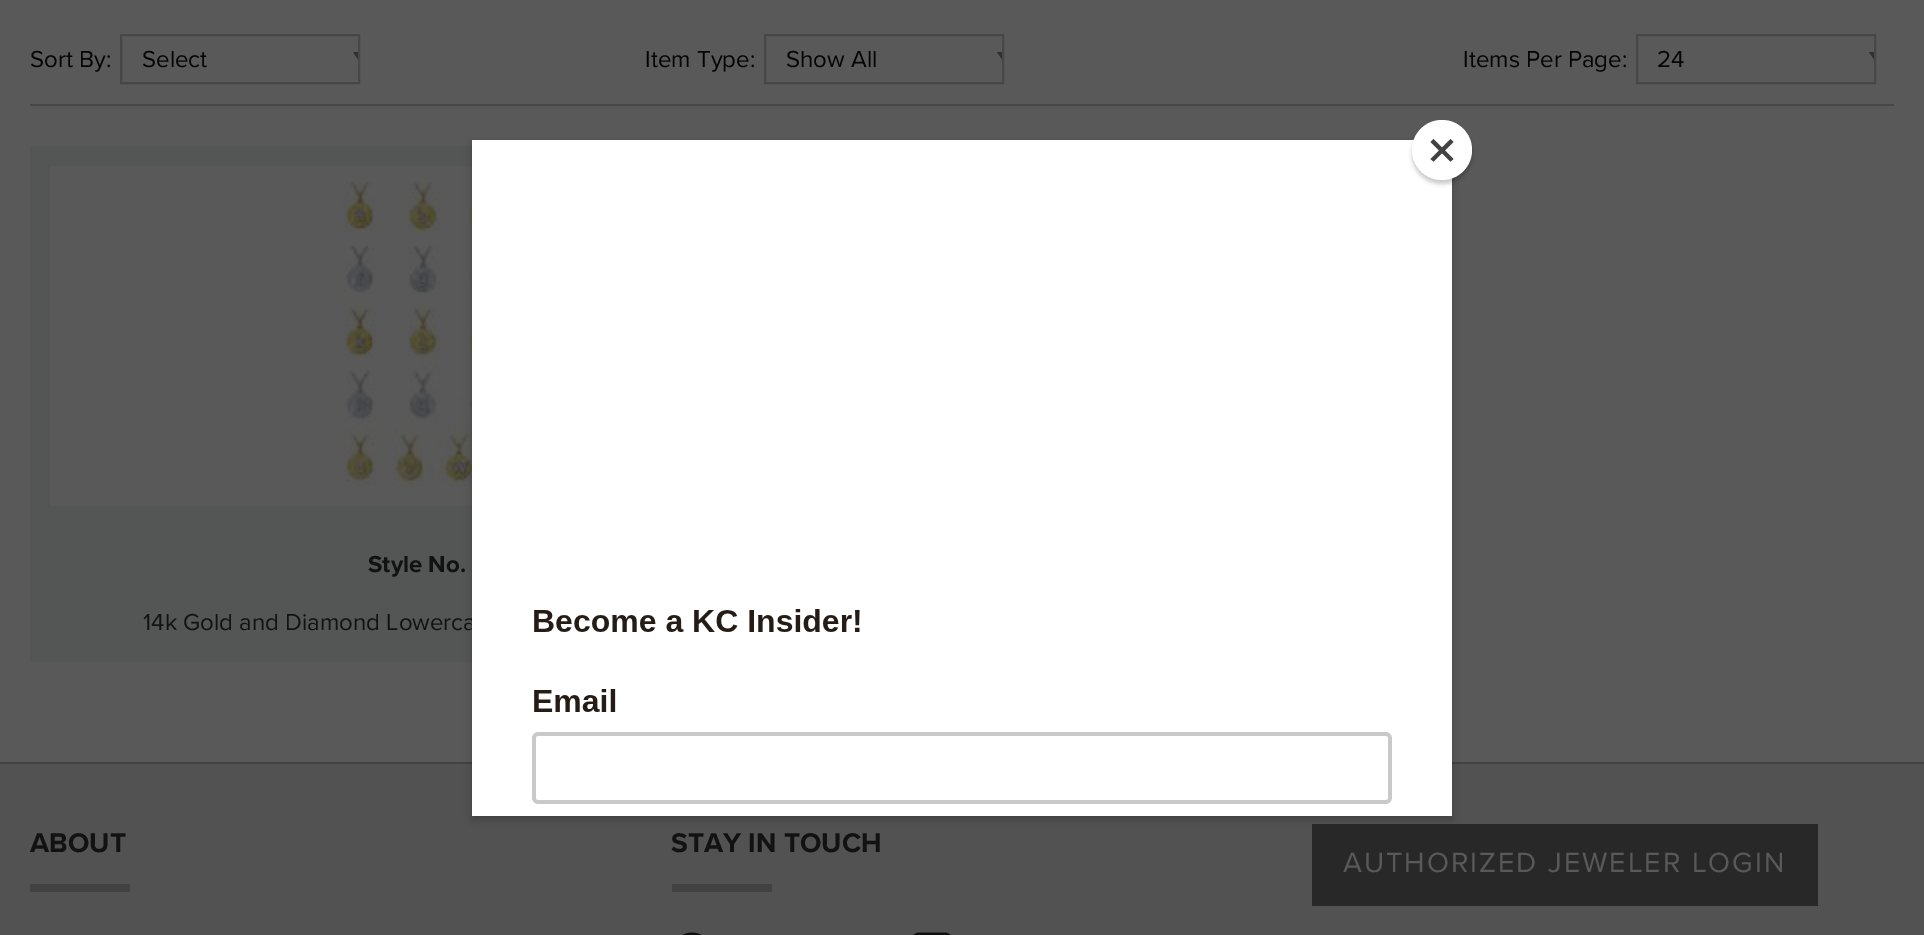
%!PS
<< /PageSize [1924 935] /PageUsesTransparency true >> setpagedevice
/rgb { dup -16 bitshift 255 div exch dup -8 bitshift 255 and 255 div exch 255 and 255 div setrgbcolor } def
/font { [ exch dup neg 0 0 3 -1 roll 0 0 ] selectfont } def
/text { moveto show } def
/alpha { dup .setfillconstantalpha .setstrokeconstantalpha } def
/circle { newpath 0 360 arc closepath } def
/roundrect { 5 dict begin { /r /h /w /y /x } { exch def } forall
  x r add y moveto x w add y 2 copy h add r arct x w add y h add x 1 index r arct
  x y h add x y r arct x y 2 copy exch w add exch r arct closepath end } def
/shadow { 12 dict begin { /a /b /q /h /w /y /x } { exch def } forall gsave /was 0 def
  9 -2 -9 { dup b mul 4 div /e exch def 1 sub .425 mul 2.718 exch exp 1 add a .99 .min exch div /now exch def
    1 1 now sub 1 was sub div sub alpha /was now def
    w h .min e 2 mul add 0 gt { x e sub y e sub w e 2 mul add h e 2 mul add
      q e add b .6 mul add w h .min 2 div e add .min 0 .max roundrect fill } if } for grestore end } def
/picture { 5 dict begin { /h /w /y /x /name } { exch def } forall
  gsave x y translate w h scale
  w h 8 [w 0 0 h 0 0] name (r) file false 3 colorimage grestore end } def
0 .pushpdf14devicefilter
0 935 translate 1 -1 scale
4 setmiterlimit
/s1 { /ProximaNova-Regular 24 font 16#040404 rgb } def
/s2 { /ProximaNova-Bold 24 font 16#121212 rgb } def
/s3 { /ProximaNova-Regular 24 font 16#121212 rgb } def
/s4 { /ProximaNova-Bold 28 font 16#121212 rgb } def
16#595959 rgb
0 0 1924 935 rectfill
16#474747 rgb
30 104 1864 2 rectfill
s1
(Sort By:) 30 67 text
gsave
352 52 8 12 rectclip
16#303030 rgb
353 52 moveto 369 52 lineto 361 64 lineto closepath fill
grestore
16#474747 rgb
2 setlinewidth
121 35 238 48 rectstroke
s1
(Select) 142 67 text
(Item Type:) 645 67 text
gsave
996 52 8 12 rectclip
16#303030 rgb
997 52 moveto 1013 52 lineto 1005 64 lineto closepath fill
grestore
16#474747 rgb
765 35 238 48 rectstroke
s1
(Show All) 786 67 text
(Items Per Page:) 1463 67 text
gsave
1868 52 8 12 rectclip
16#303030 rgb
1869 52 moveto 1885 52 lineto 1877 64 lineto closepath fill
grestore
16#474747 rgb
1637 35 238 48 rectstroke
s1
(24) 1657 67 text
16#545555 rgb
30 146 442 516 rectfill
16#595959 rgb
50 166 422 340 rectfill
(pic1.raw) 343 176 129 312 picture
s2
(Style No.) 368 572 text
s3
(14k Gold and Diamond Lowerca) 143 630 text
16#525252 rgb
0 764 1924 171 rectfill
16#424242 rgb
0 762 1924 2 rectfill
s4
(ABOUT) 30 852 text
16#424242 rgb
30 884 100 8 rectfill
s4
(STAY IN TOUCH) 671 852 text
16#424242 rgb
672 884 100 8 rectfill
(pic2.raw) 682 932 20 3 picture
(pic3.raw) 913 932 38 3 picture
16#282828 rgb
1312 824 506 82 rectfill
/ProximaNova-Regular 28.75 font
16#595959 rgb
1343 872 moveto 2 0 (AUTHORIZED JEWELER LOGIN) ashow
16#000000 rgb
472 144 980 676 0 4 0.2 shadow
(pic4.raw) 472 140 980 676 picture
1412 124 60 60 30 2 0.2 shadow
16#FFFFFF rgb
1442 150 30 circle fill
16#414141 rgb
1450.5 139 moveto 1453.5 142 lineto 1433.5 161.5 lineto 1430.5 159 lineto closepath fill
1430.5 142 moveto 1433.5 139 lineto 1453.5 159 lineto 1450.5 161.5 lineto closepath fill
.poppdf14devicefilter showpage
